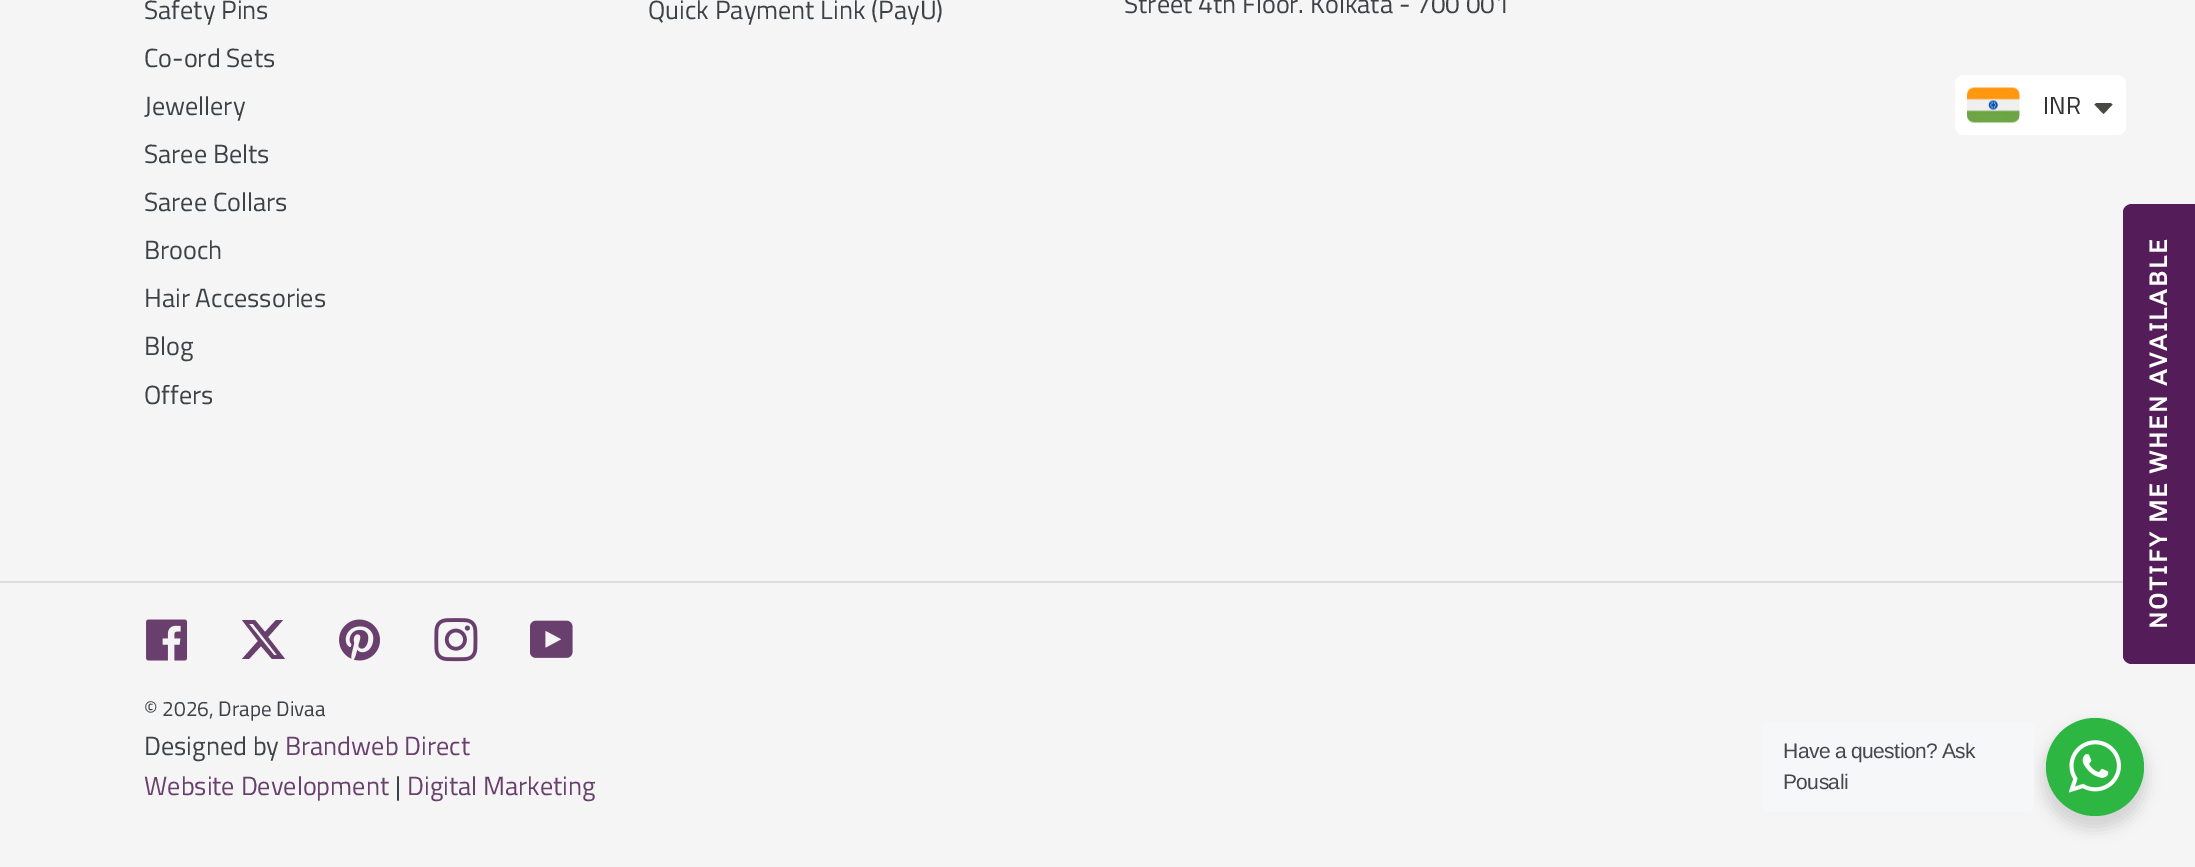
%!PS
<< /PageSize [2195 867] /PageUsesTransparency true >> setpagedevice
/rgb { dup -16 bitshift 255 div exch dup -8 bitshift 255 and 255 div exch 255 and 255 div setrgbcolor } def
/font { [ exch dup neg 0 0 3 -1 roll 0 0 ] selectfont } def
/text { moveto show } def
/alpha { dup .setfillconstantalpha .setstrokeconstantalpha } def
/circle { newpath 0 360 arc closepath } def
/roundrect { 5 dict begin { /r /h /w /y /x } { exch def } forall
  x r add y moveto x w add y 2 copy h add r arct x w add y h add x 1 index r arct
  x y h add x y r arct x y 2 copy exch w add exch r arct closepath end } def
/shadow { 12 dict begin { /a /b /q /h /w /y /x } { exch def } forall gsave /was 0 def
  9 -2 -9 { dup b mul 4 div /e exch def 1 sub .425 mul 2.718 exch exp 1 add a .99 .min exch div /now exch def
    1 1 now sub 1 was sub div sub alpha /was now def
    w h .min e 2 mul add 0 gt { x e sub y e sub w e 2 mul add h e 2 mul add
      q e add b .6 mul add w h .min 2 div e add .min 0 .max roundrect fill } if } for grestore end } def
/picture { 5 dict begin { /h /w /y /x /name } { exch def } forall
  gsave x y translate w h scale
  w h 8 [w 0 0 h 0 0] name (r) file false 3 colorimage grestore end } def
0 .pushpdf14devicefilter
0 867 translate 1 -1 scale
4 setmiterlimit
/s1 { /TitilliumWeb-Regular 26.25 font 16#3D4246 rgb } def
/s2 { /TitilliumWeb-Regular 21 font 16#3D4246 rgb } def
/s3 { /TitilliumWeb-Regular 26.25 font 16#69406D rgb } def
/s4 { /TitilliumWeb-Regular 24.5 font 16#333333 rgb } def
16#F5F5F5 rgb
0 0 2195 867 rectfill
s1
(Safety Pins) 144 19 text
(Co-ord Sets) 144 67 text
(Jewellery) 144 115 text
(Saree Belts) 144 163 text
(Saree Collars) 144 211 text
(Brooch) 144 259 text
(Hair Accessories) 144 307 text
(Blog) 144 355 text
(Offers) 144 404 text
(Quick Payment Link \(PayU\)) 648 19 text
(Street 4th Floor. Kolkata - 700 001) 1124 13 text
16#DCDCDC rgb
0 581 2123 2 rectfill
(pic1.raw) 146 619 42 42 picture
16#69406D rgb
276 620 moveto 283 620 lineto 268 637 lineto 285 659 lineto 272 659 lineto 261 646 lineto 249 659 lineto 242 659 lineto 258 641 lineto 242 620 lineto 255 620 lineto 265 632 lineto closepath 274 655 moveto 277 655 lineto 253 624 lineto 249 624 lineto closepath fill
(pic2.raw) 339 619 41 42 picture
(pic3.raw) 434 618 44 44 picture
(pic4.raw) 530 620 43 38 picture
s2
(© 2026, Drape Divaa) 144 716 text
s1
(Designed by) 144 755 text
s3
(Brandweb Direct) 285 755 text
(Website Development) 144 795 text
s1
(|) 395 795 text
s3
(Digital Marketing) 407 795 text
16#FFFFFF rgb
1955 75 171 60 9 roundrect fill
(pic5.raw) 1967 87 53 36 picture
s4
(INR) 2043 114 text
16#474942 rgb
2094.5 104.5 moveto 2095 104 2096 103.5 2096.5 103 curveto 2110.5 103 lineto 2111 103.5 2112 104 2112.5 104.5 curveto 2103.5 114 lineto closepath fill
16#541D59 rgb
2123 656 moveto 2123 212 lineto 2123 208 2127 204 2132 204 curveto 2195 204 lineto 2195 664 lineto 2132 664 lineto 2127 664 2123 660 2123 656 curveto closepath fill
/Chivo-Bold 24.5 font
16#FFFFFF rgb
gsave 2167 629 translate -90 rotate 0 0 moveto 2 0 (NOTIFY ME WHEN AVAILABLE) ashow grestore
16#000000 rgb
2042 725 105 105 52.5 7 0.14 shadow
16#F5F7F9 rgb
1762 721 272 91 7 roundrect fill
/LiberationSans-Regular 21 font
16#43474E rgb
1783 758 moveto -0.6 0 (Have a question? Ask) ashow
1783 789 moveto -0.6 0 (Pousali) ashow
16#2DB742 rgb
2095 767 49 circle fill
(pic6.raw) 2069 740 52 53 picture
.poppdf14devicefilter showpage
